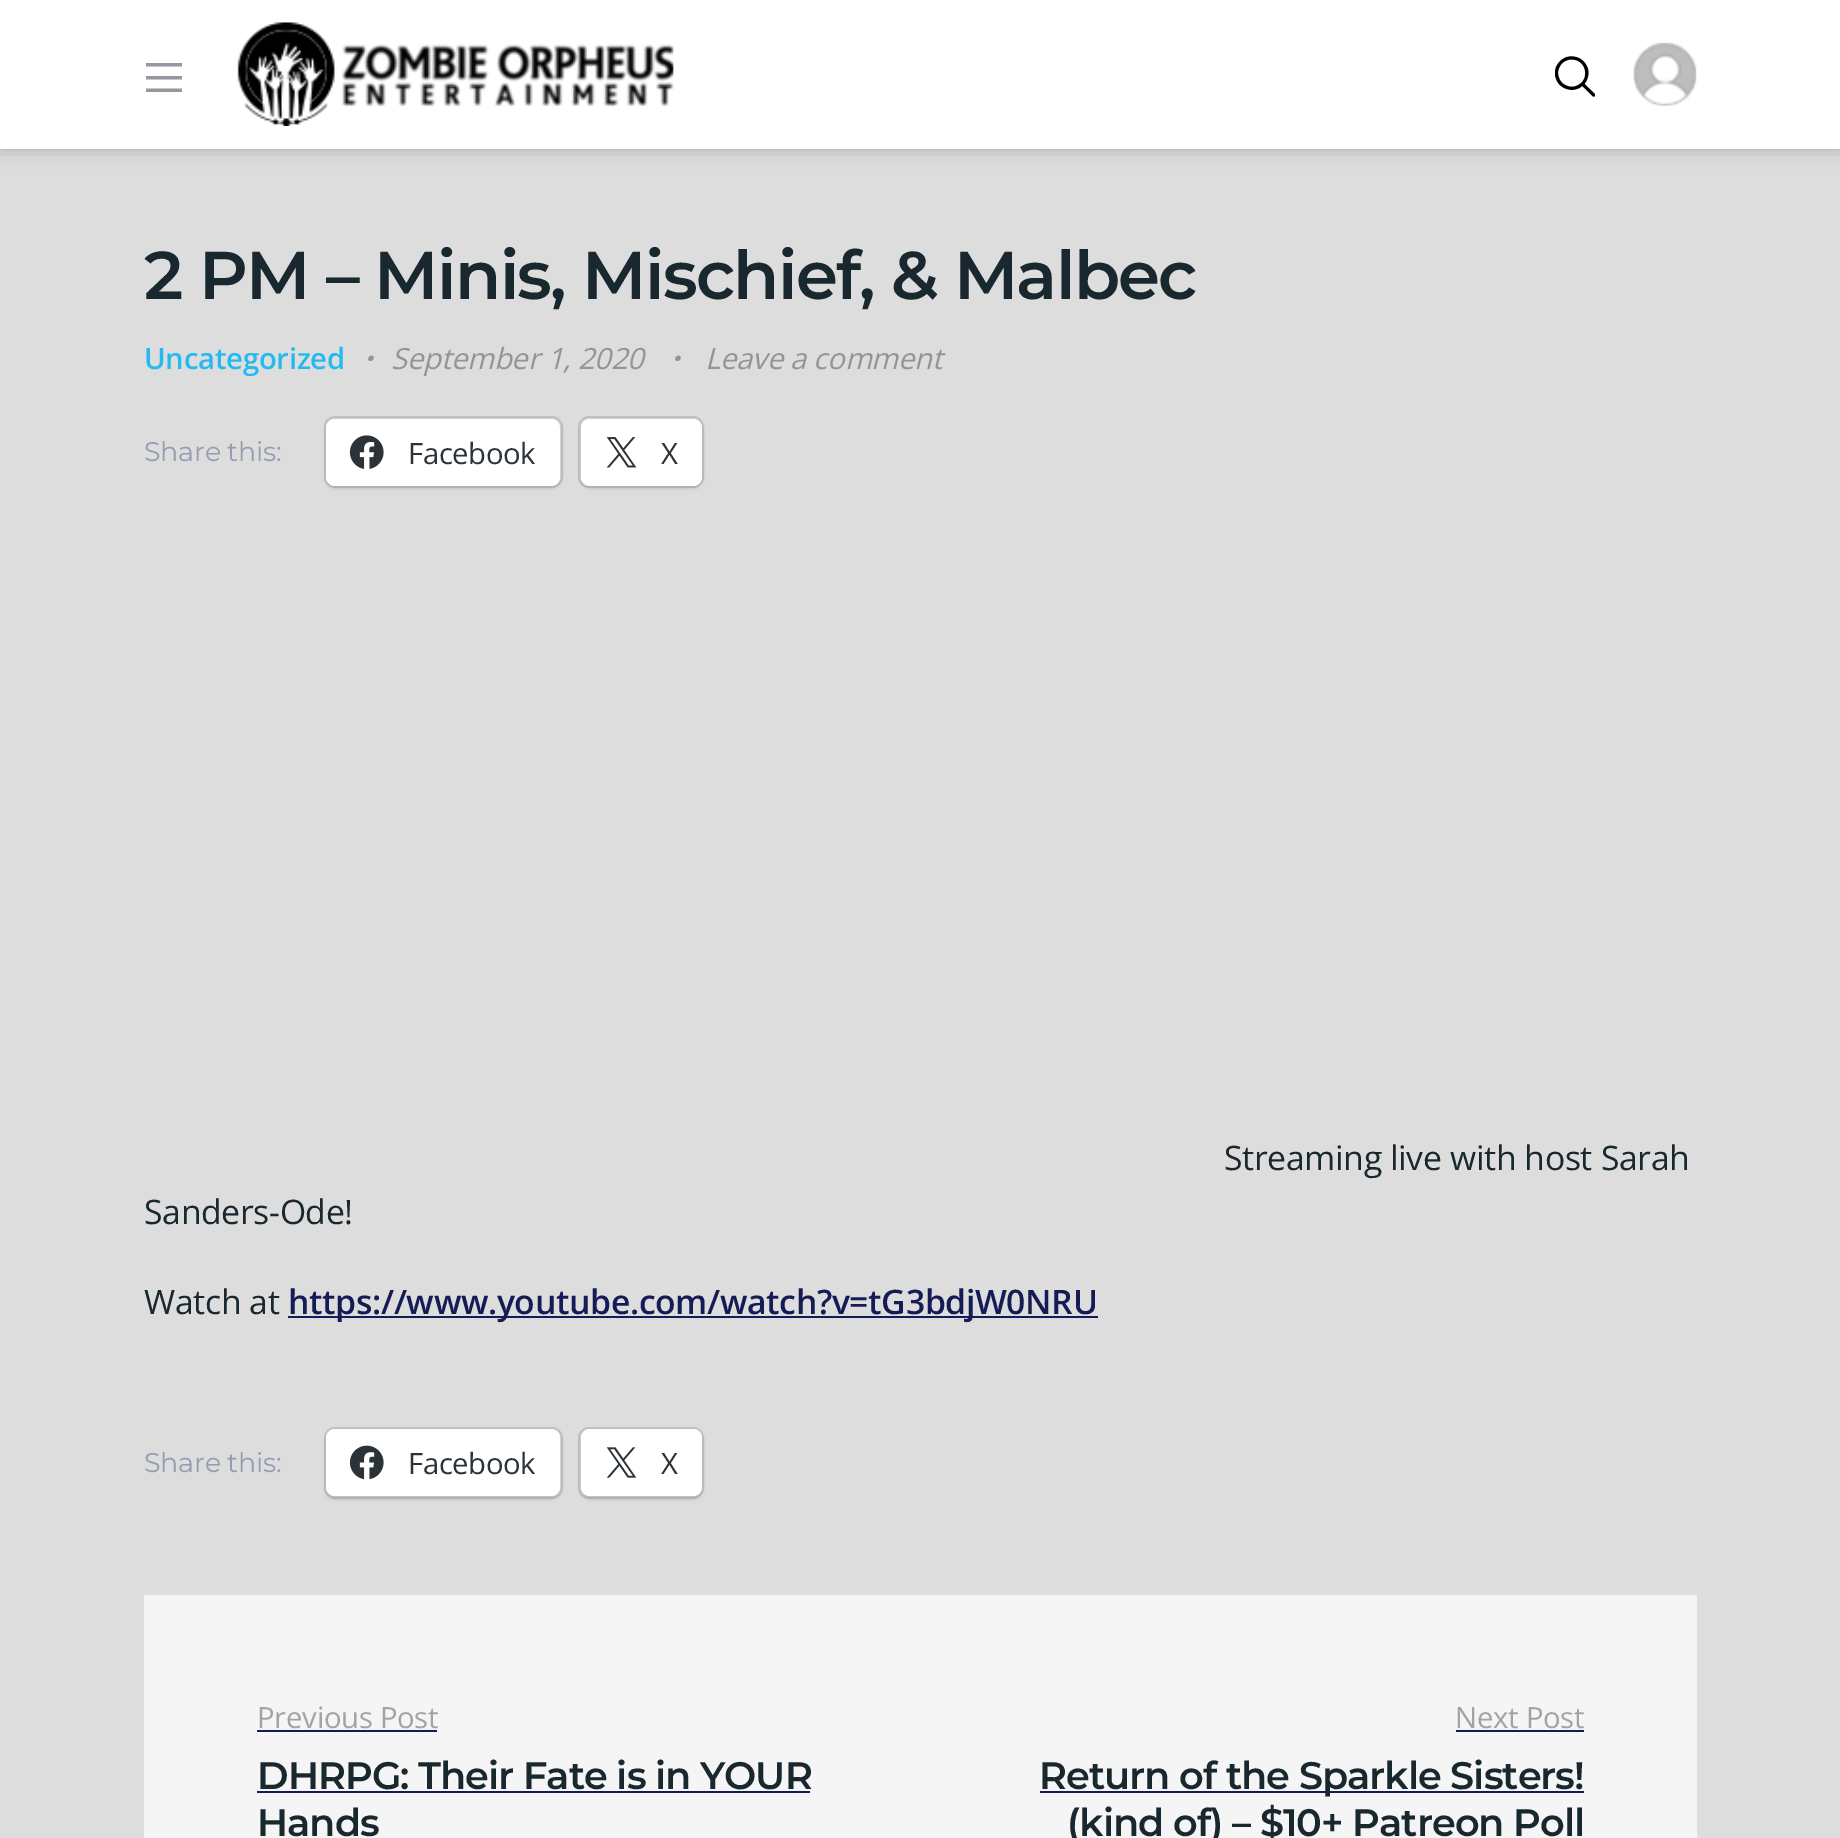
%!PS
<< /PageSize [1840 1838] /PageUsesTransparency true >> setpagedevice
/rgb { dup -16 bitshift 255 div exch dup -8 bitshift 255 and 255 div exch 255 and 255 div setrgbcolor } def
/font { [ exch dup neg 0 0 3 -1 roll 0 0 ] selectfont } def
/alpha { dup .setfillconstantalpha .setstrokeconstantalpha } def
/roundrect { 5 dict begin { /r /h /w /y /x } { exch def } forall
  x r add y moveto x w add y 2 copy h add r arct x w add y h add x 1 index r arct
  x y h add x y r arct x y 2 copy exch w add exch r arct closepath end } def
/shadow { 12 dict begin { /a /b /q /h /w /y /x } { exch def } forall gsave /was 0 def
  9 -2 -9 { dup b mul 4 div /e exch def 1 sub .425 mul 2.718 exch exp 1 add a .99 .min exch div /now exch def
    1 1 now sub 1 was sub div sub alpha /was now def
    w h .min e 2 mul add 0 gt { x e sub y e sub w e 2 mul add h e 2 mul add
      q e add b .6 mul add w h .min 2 div e add .min 0 .max roundrect fill } if } for grestore end } def
/picture { 5 dict begin { /h /w /y /x /name } { exch def } forall
  gsave x y translate w h scale
  w h 8 [w 0 0 h 0 0] name (r) file false 3 colorimage grestore end } def
0 .pushpdf14devicefilter
0 1838 translate 1 -1 scale
4 setmiterlimit
16#DDDDDD rgb
0 0 1840 1838 rectfill
16#333333 rgb
0 0 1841 149 0 9 0.3 shadow
16#FFFFFF rgb
0 0 1840 149 rectfill
16#97979F rgb
146 92 moveto 146 88.5 lineto 182 88.5 lineto 182 92 lineto closepath 146 76 moveto 182 76 lineto 182 79.5 lineto 146 79.5 lineto closepath 146 63 moveto 182 63 lineto 182 66.5 lineto 146 66.5 lineto closepath fill
(pic1.raw) 237 22 437 104 picture
(pic2.raw) 1555 56 40 41 picture
(pic3.raw) 1633 42 64 64 picture
/Montserrat-SemiBold 67.5 font
16#19272E rgb
144 299 moveto -1.7 0 (2 PM – Minis, Mischief, & Malbec) ashow
/OpenSans-SemiBold 29.25 font
16#24BAEF rgb
144 369 moveto -0.25 0 (Uncategorized) ashow
/WenQuanYiZenHei-BoldItalic 29.25 font
16#949494 rgb
353 369 moveto -0.25 0 (・) ashow
/OpenSans-Italic 29.25 font
391 369 moveto -0.25 0 (September 1, 2020) ashow
/WenQuanYiZenHei-BoldItalic 29.25 font
660 369 moveto -0.25 0 (・) ashow
/OpenSans-Italic 29.25 font
705 369 moveto -0.25 0 (Leave a comment) ashow
/Montserrat-Thin 27 font
16#949CB0 rgb
144 461 moveto -0.25 0 (Share this:) ashow
16#C2C2C2 rgb
2 setlinewidth
325 417 237 70 10 roundrect stroke
16#000000 rgb
326 421 234 67 9 2 0.12 shadow
16#FFFFFF rgb
326 419 234 67 9 roundrect fill
(pic4.raw) 349 435 35 34 picture
/OpenSans-Regular 29.25 font
16#2C3338 rgb
408 464 moveto -0.35 0 (Facebook) ashow
16#C2C2C2 rgb
579 417 124 70 10 roundrect stroke
16#000000 rgb
581 421 121 67 9 2 0.12 shadow
16#FFFFFF rgb
581 419 121 67 9 roundrect fill
(pic5.raw) 606 437 31 31 picture
16#2C3338 rgb
661 464 moveto -0.35 0 (X) ashow
/OpenSans-Regular 33.75 font
16#19272E rgb
1224 1170 moveto -0.35 0 (Streaming live with host Sarah) ashow
144 1224 moveto -0.35 0 (Sanders-Ode!) ashow
144 1314 moveto -0.35 0 (Watch at) ashow
16#151B54 rgb
288 1316 810 2 rectfill
/OpenSans-SemiBold 33.75 font
288 1314 moveto -0.35 0 (https://www.youtube.com/watch?v=tG3bdjW0NRU) ashow
/Montserrat-Thin 27 font
16#949CB0 rgb
144 1472 moveto -0.25 0 (Share this:) ashow
16#C2C2C2 rgb
325 1428 237 70 10 roundrect stroke
16#000000 rgb
326 1431 234 68 9 2 0.12 shadow
16#FFFFFF rgb
326 1429 234 67 9 roundrect fill
(pic6.raw) 349 1445 35 35 picture
/OpenSans-Regular 29.25 font
16#2C3338 rgb
408 1474 moveto -0.35 0 (Facebook) ashow
16#C2C2C2 rgb
579 1428 124 70 10 roundrect stroke
16#000000 rgb
581 1431 121 68 9 2 0.12 shadow
16#FFFFFF rgb
581 1429 121 67 9 roundrect fill
(pic7.raw) 606 1447 31 31 picture
16#2C3338 rgb
661 1474 moveto -0.35 0 (X) ashow
16#F5F5F5 rgb
144 1595 1553 243 rectfill
16#A3A3A3 rgb
257 1728 moveto -0.25 0 (Previous Post) ashow
16#151B54 rgb
257 1730 180 2 rectfill
/Montserrat-SemiBold 38.25 font
16#19272E rgb
257 1789 moveto -0.95 0 (DHRPG: Their Fate is in YOUR) ashow
16#151B54 rgb
257 1791 553 2 rectfill
16#19272E rgb
257 1836 moveto -0.95 0 (Hands) ashow
/OpenSans-Regular 29.25 font
16#A3A3A3 rgb
1455 1728 moveto -0.25 0 (Next Post) ashow
16#151B54 rgb
1456 1730 128 2 rectfill
1040 1791 544 2 rectfill
/Montserrat-SemiBold 38.25 font
16#19272E rgb
1039 1789 moveto -0.95 0 (Return of the Sparkle Sisters!) ashow
1067 1836 moveto -0.95 0 (\(kind of\) – $10+ Patreon Poll) ashow
.poppdf14devicefilter showpage
